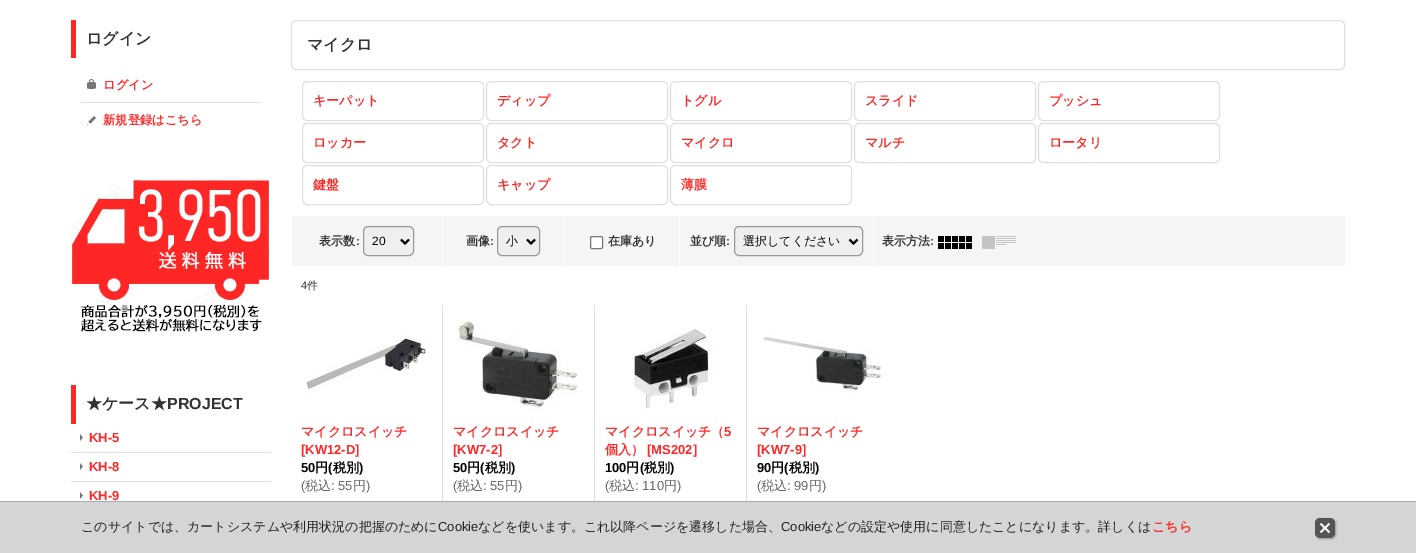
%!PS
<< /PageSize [1416 553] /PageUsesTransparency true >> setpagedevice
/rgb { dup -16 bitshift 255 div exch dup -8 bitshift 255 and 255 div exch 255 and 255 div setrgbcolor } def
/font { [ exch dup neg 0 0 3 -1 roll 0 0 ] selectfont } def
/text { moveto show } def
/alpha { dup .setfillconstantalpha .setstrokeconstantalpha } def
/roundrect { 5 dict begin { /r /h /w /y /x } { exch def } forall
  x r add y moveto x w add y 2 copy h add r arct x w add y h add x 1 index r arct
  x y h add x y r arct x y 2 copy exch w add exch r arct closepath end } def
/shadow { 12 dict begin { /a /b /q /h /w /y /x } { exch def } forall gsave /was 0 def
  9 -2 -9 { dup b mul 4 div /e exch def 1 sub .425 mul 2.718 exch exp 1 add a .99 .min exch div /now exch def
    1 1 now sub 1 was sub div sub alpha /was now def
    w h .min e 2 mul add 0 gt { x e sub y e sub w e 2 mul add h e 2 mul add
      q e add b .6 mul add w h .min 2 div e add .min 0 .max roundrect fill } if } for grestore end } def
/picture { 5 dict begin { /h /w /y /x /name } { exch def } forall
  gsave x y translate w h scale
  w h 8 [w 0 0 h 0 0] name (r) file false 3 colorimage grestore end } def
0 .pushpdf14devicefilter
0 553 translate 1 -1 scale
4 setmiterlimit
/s1 { /WenQuanYiZenHei-Bold 16 font 16#333333 rgb } def
/s2 { /WenQuanYiZenHei-Bold 12.25 font 16#FF2626 rgb } def
/s3 { /LiberationSans-Bold 16 font 16#333333 rgb } def
/s4 { /LiberationSans-Bold 13 font 16#FF2626 rgb } def
/s5 { /WenQuanYiZenHei-Bold 13 font 16#FF2626 rgb } def
/s6 { /WenQuanYiZenHei-Bold 12 font 16#333333 rgb } def
/s7 { /LiberationSans-Bold 12 font 16#333333 rgb } def
/s8 { /LiberationSans-Regular 12 font 16#000000 rgb } def
/s9 { /WenQuanYiZenHei-Medium 12 font 16#000000 rgb } def
/s10 { /LiberationSans-Regular 11 font 16#333333 rgb } def
/s11 { /WenQuanYiZenHei-Medium 11 font 16#333333 rgb } def
/s12 { /LiberationSans-Bold 13 font 16#000000 rgb } def
/s13 { /WenQuanYiZenHei-Bold 13 font 16#000000 rgb } def
/s14 { /LiberationSans-Regular 13 font 16#666666 rgb } def
/s15 { /WenQuanYiZenHei-Medium 13 font 16#666666 rgb } def
/s16 { /WenQuanYiZenHei-Medium 13 font 16#222222 rgb } def
/s17 { /LiberationSans-Regular 13 font 16#222222 rgb } def
16#FFFFFF rgb
0 0 1416 553 rectfill
16#FF2626 rgb
71 20 5 38 rectfill
s1
(ログイン) 86 44 text
(pic1.raw) 87 79 9 10 picture
16#E0DFE3 rgb
81 102 180 1 rectfill
s2
(ログイン) 103 89 text
(pic2.raw) 87 116 9 9 picture
(新規登録はこちら) 103 124 text
(pic3.raw) 71 177 200 155 picture
71 385 5 39 rectfill
s1
(★ケース★) 86 409 text
s3
(PROJECT) 167 409 text
16#E0DFE3 rgb
71 452 200 1 rectfill
(pic4.raw) 80 434 3 7 picture
s4
(KH-5) 89 442 text
16#E0DFE3 rgb
71 481 200 1 rectfill
(pic4.raw) 80 463 3 7 picture
s4
(KH-8) 89 471 text
(pic4.raw) 80 492 3 7 picture
(KH-9) 89 500 text
16#E0DFE3 rgb
291.5 20.5 1053 49 4.5 roundrect stroke
s1
(マイクロ) 307 50 text
16#E0DFE3 rgb
302.5 81.5 181 39 4.5 roundrect stroke
s5
(キーパット) 313 105 text
16#E0DFE3 rgb
486.5 81.5 181 39 4.5 roundrect stroke
s5
(ディップ) 497 105 text
16#E0DFE3 rgb
670.5 81.5 181 39 4.5 roundrect stroke
s5
(トグル) 681 105 text
16#E0DFE3 rgb
854.5 81.5 181 39 4.5 roundrect stroke
s5
(スライド) 865 105 text
16#E0DFE3 rgb
1038.5 81.5 181 39 4.5 roundrect stroke
s5
(プッシュ) 1049 105 text
16#E0DFE3 rgb
302.5 123.5 181 39 4.5 roundrect stroke
s5
(ロッカー) 313 147 text
16#E0DFE3 rgb
486.5 123.5 181 39 4.5 roundrect stroke
s5
(タクト) 497 147 text
16#E0DFE3 rgb
670.5 123.5 181 39 4.5 roundrect stroke
s5
(マイクロ) 681 147 text
16#E0DFE3 rgb
854.5 123.5 181 39 4.5 roundrect stroke
s5
(マルチ) 865 147 text
16#E0DFE3 rgb
1038.5 123.5 181 39 4.5 roundrect stroke
s5
(ロータリ) 1049 147 text
16#E0DFE3 rgb
302.5 165.5 181 39 4.5 roundrect stroke
s5
(鍵盤) 313 189 text
16#E0DFE3 rgb
486.5 165.5 181 39 4.5 roundrect stroke
s5
(キャップ) 497 189 text
16#E0DFE3 rgb
670.5 165.5 181 39 4.5 roundrect stroke
s5
(薄膜) 681 189 text
16#F5F5F5 rgb
292 216 1053 50 rectfill
s6
(表示数) 319 245 text
s7
(:) 356 245 text
16#EFEFEF rgb
363.5 226.5 50 29 4.5 roundrect gsave fill grestore
16#999999 rgb
stroke
16#000000 rgb
2 setlinewidth
401 239.5 moveto 405 243.5 lineto 409 239.5 lineto stroke
s8
(20) 372 245 text
16#FFFFFF rgb
442 216 1 50 rectfill
s6
(画像) 466 245 text
s7
(:) 490 245 text
16#EFEFEF rgb
497.5 226.5 42 29 4.5 roundrect gsave fill grestore
16#999999 rgb
1 setlinewidth
stroke
16#000000 rgb
2 setlinewidth
527 239.5 moveto 531 243.5 lineto 535 239.5 lineto stroke
s9
(小) 506 245 text
16#FFFFFF rgb
563 216 1 50 rectfill
590.5 236.5 12 12 1.5 roundrect gsave fill grestore
16#767676 rgb
1 setlinewidth
stroke
s6
(在庫あり) 608 245 text
16#FFFFFF rgb
679 216 1 50 rectfill
s6
(並び順) 690 245 text
s7
(:) 726 245 text
16#EFEFEF rgb
734.5 226.5 128 29 4.5 roundrect gsave fill grestore
16#999999 rgb
stroke
16#000000 rgb
2 setlinewidth
849.5 239.5 moveto 853.5 243.5 lineto 857.5 239.5 lineto stroke
s9
(選択してください) 743 245 text
16#FFFFFF rgb
873 216 1 50 rectfill
s6
(表示方法) 882 245 text
s7
(:) 930 245 text
(pic5.raw) 938 236 34 13 picture
(pic6.raw) 982 236 34 13 picture
s10
(4) 301 289 text
s11
(件) 307 289 text
16#E0DFE3 rgb
442 305 1 196 rectfill
(pic7.raw) 306 333 120 63 picture
s5
(マイクロスイッチ) 301 436 text
s4
([KW12-D]) 301 454 text
s12
(50) 301 472 text
s13
(円) 315 472 text
s12
(\() 328 472 text
s13
(税別) 333 472 text
s12
(\)) 359 472 text
s14
(\() 301 490 text
s15
(税込) 305 490 text
s14
(: 55) 331 490 text
s15
(円) 353 490 text
s14
(\)) 366 490 text
16#E0DFE3 rgb
594 305 1 196 rectfill
(pic8.raw) 458 316 120 96 picture
s5
(マイクロスイッチ) 453 436 text
s4
([KW7-2]) 453 454 text
s12
(50) 453 472 text
s13
(円) 467 472 text
s12
(\() 480 472 text
s13
(税別) 485 472 text
s12
(\)) 511 472 text
s14
(\() 453 490 text
s15
(税込) 457 490 text
s14
(: 55) 483 490 text
s15
(円) 505 490 text
s14
(\)) 518 490 text
16#E0DFE3 rgb
746 305 1 196 rectfill
(pic9.raw) 634 325 80 84 picture
s5
(マイクロスイッチ（) 605 436 text
s4
(5) 724 436 text
s5
(個入）) 605 454 text
s4
([MS202]) 647 454 text
s12
(100) 605 472 text
s13
(円) 626 472 text
s12
(\() 640 472 text
s13
(税別) 644 472 text
s12
(\)) 670 472 text
s14
(\() 605 490 text
s15
(税込) 609 490 text
s14
(: 110) 635 490 text
s15
(円) 664 490 text
s14
(\)) 677 490 text
(pic10.raw) 762 333 120 63 picture
s5
(マイクロスイッチ) 757 436 text
s4
([KW7-9]) 757 454 text
s12
(90) 757 472 text
s13
(円) 771 472 text
s12
(\() 784 472 text
s13
(税別) 789 472 text
s12
(\)) 815 472 text
s14
(\() 757 490 text
s15
(税込) 761 490 text
s14
(: 99) 787 490 text
s15
(円) 809 490 text
s14
(\)) 822 490 text
16#D5D5D5 rgb
0 502 1416 51 rectfill
16#AAAAAA rgb
0 501 1416 1 rectfill
s16
(このサイトでは、カートシステムや利用状況の把握のために) 81 531 text
s17
(Cookie) 438 531 text
s16
(などを使います。これ以降ページを遷移した場合、) 478 531 text
s17
(Cookie) 781 531 text
s16
(などの設定や使用に同意したことになります。詳しくは) 821 531 text
s5
(こちら) 1152 531 text
16#000000 rgb
1316 519 20 20 5 1 0.3 shadow
(pic11.raw) 1315 518 20 20 picture
.poppdf14devicefilter showpage
